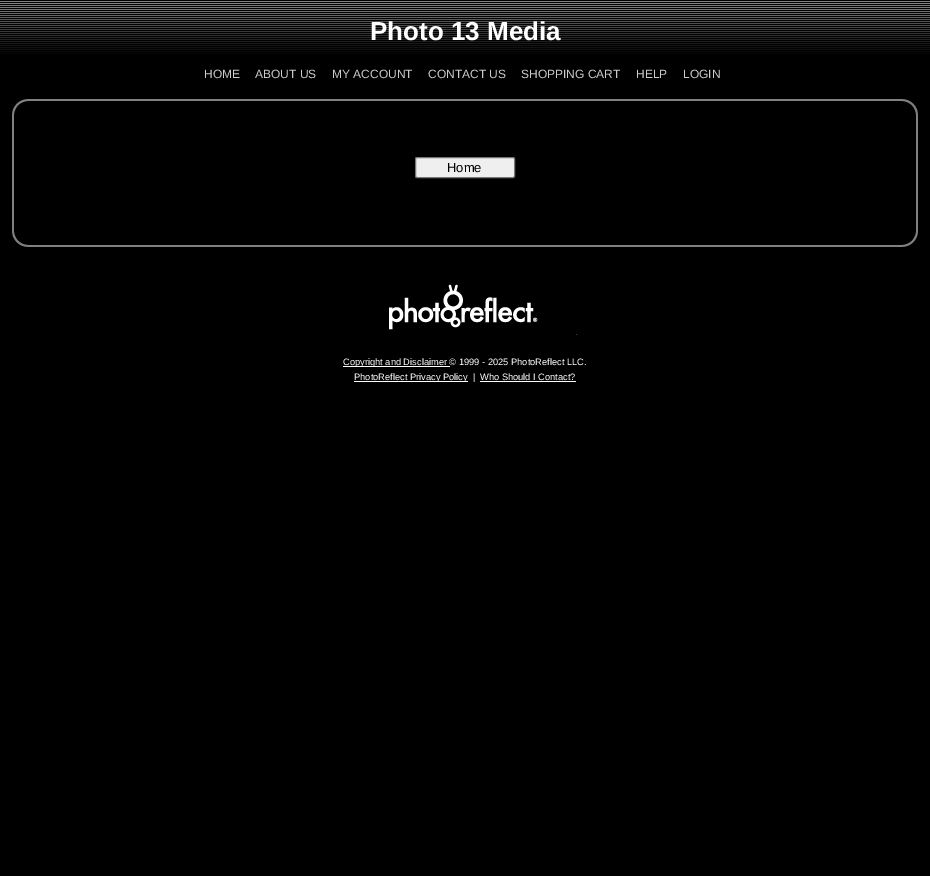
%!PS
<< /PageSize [930 876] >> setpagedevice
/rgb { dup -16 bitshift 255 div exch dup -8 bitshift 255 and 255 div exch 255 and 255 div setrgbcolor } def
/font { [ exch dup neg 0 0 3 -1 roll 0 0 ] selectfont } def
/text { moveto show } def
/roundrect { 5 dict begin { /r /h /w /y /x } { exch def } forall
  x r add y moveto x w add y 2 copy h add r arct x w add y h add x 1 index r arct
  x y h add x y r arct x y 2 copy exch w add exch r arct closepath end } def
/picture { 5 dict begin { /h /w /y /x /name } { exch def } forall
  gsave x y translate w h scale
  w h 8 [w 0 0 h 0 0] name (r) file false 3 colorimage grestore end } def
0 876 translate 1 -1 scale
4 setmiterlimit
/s1 { /LiberationSans-Bold 26 font 16#FFFFFF rgb } def
/s2 { /LiberationSans-Regular 12 font 16#CCCCCC rgb } def
/s3 { /LiberationSans-Regular 13 font 16#000000 rgb } def
/s4 { /LiberationSans-Regular 9.3 font 16#FFFFFF rgb } def
16#000000 rgb
0 0 930 876 rectfill
(pic1.raw) 0 1 930 53 picture
s1
(Photo 13 Media) 370 40 text
s2
(HOME) 204 78 text
(ABOUT US) 255 78 text
(MY ACCOUNT) 332 78 text
(CONTACT US) 428 78 text
(SHOPPING CART) 521 78 text
(HELP) 636 78 text
(LOGIN) 683 78 text
16#808080 rgb
28 99 874 2 rectfill
(pic2.raw) 0 99 28 19 picture
(pic3.raw) 902 99 28 19 picture
12 118 2 110 rectfill
16#EFEFEF rgb
415.5 157.5 99 20 1.5 roundrect gsave fill grestore
16#767676 rgb
stroke
s3
(Home) 447 172 text
16#808080 rgb
916 118 2 110 rectfill
28 245 874 2 rectfill
(pic4.raw) 0 228 28 19 picture
(pic5.raw) 902 228 28 19 picture
(pic6.raw) 389 284 189 51 picture
16#FFFFFF rgb
343 366 107 1 rectfill
s4
(Copyright and Disclaimer © 1999 - 2025 PhotoReflect LLC.) 343 365 text
354 381 114 1 rectfill
(PhotoReflect Privacy Policy) 354 380 text
(|) 473 380 text
(Who Should I Contact?) 480 380 text
480 381 96 1 rectfill
showpage
